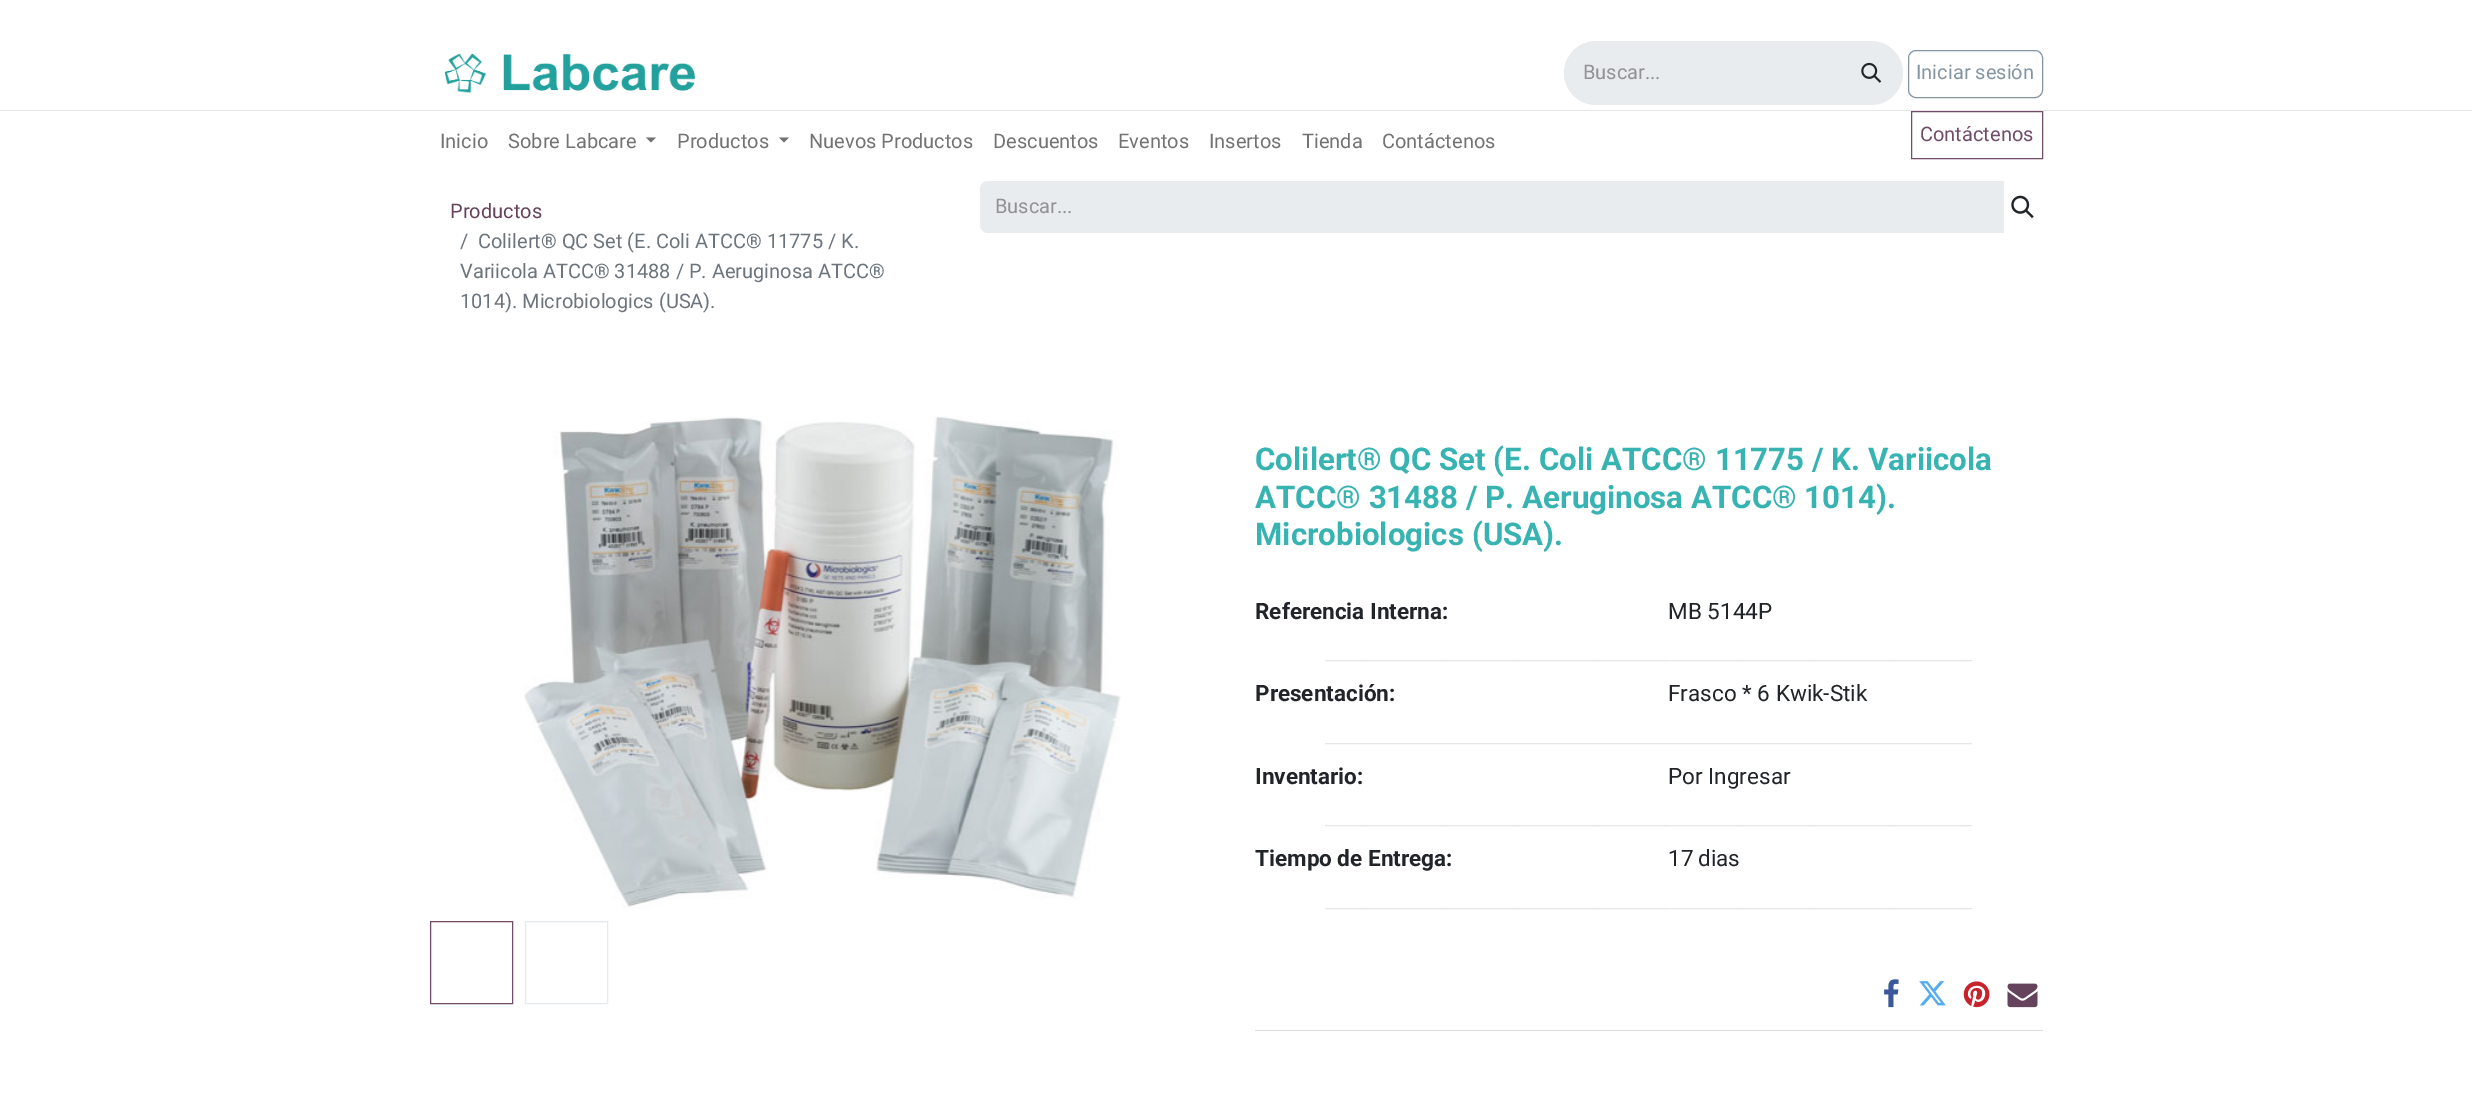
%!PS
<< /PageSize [2472 1102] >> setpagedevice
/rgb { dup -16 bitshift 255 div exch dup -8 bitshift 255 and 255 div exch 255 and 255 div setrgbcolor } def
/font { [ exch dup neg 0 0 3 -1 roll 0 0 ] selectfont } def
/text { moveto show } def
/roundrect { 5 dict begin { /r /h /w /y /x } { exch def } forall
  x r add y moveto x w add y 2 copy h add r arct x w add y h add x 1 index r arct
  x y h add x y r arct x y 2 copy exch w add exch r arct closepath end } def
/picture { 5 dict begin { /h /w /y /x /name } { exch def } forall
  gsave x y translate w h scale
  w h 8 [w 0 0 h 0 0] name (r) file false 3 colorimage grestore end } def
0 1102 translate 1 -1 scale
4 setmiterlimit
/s1 { /Roboto-Regular 20 font 16#909294 rgb } def
/s2 { /Roboto-Regular 20 font 16#8595A2 rgb } def
/s3 { /Roboto-Regular 20 font 16#737373 rgb } def
/s4 { /Roboto-Regular 20 font 16#714B67 rgb } def
/s5 { /Roboto-Regular 20 font 16#65435C rgb } def
/s6 { /Roboto-Regular 20 font 16#6C757D rgb } def
/s7 { /Roboto-Bold 31.25 font 16#37B4B2 rgb } def
/s8 { /Roboto-Bold 22.5 font 16#212529 rgb } def
/s9 { /Roboto-Regular 22.5 font 16#212529 rgb } def
/s10 { /Roboto-Regular 17.5 font 16#E5E5E5 rgb } def
16#FFFFFF rgb
0 0 2472 1102 rectfill
(pic1.raw) 444 53 251 40 picture
16#E9ECEF rgb
1596 41 moveto 1841 41 lineto 1841 105 lineto 1596 105 lineto 1578.5 105 1564 90.5 1564 73 curveto 1564 55.5 1578.5 41 1596 41 curveto closepath fill
s1
(Buscar...) 1583 79 text
16#E9ECEF rgb
1840 41 moveto 1871 41 lineto 1888.5 41 1903 55.5 1903 73 curveto 1903 90.5 1888.5 105 1871 105 curveto 1840 105 lineto closepath fill
(pic2.raw) 1861 62 21 21 picture
16#8595A2 rgb
1908.5 50.5 134 47 7.5 roundrect stroke
(Iniciar sesión) 1916 79 text
16#E6E6E6 rgb
0 110 2472 1 rectfill
s3
(Inicio) 440 148 text
(Sobre Labcare) 508 148 text
646 137.5 moveto 656 137.5 lineto 651 142.5 lineto closepath fill
(Productos) 677 148 text
779 137.5 moveto 789 137.5 lineto 784 142.5 lineto closepath fill
(Nuevos Productos) 809 148 text
(Descuentos) 993 148 text
(Eventos) 1118 148 text
(Insertos) 1209 148 text
(Tienda) 1302 148 text
(Contáctenos) 1382 148 text
16#714B67 rgb
1911.5 111.5 131 47 rectstroke
(Contáctenos) 1920 141 text
s5
(Productos) 450 218 text
s6
(/) 460 248 text
(Colilert® QC Set \(E. Coli ATCC® 11775 / K.) 478 248 text
(Variicola ATCC® 31488 / P. Aeruginosa ATCC®) 460 278 text
(1014\). Microbiologics \(USA\).) 460 308 text
16#E9ECEF rgb
988 181 moveto 2004 181 lineto 2004 233 lineto 988 233 lineto 983.5 233 980 229.5 980 225 curveto 980 189 lineto 980 184.5 983.5 181 988 181 curveto closepath fill
s1
(Buscar...) 995 213 text
(pic3.raw) 2011 195 23 24 picture
(pic4.raw) 524 416 597 493 picture
16#714B67 rgb
430.5 921.5 82 82 rectstroke
16#E7EAED rgb
525.5 921.5 82 82 rectstroke
s7
(Colilert® QC Set \(E. Coli ATCC® 11775 / K. Variicola) 1255 470 text
(ATCC® 31488 / P. Aeruginosa ATCC® 1014\).) 1255 508 text
(Microbiologics \(USA\).) 1255 545 text
s8
(Referencia Interna:) 1255 619 text
s9
(MB 5144P) 1668 619 text
s10
(__________________________________________________________________________________) 1325 660 text
s8
(Presentación:) 1255 701 text
s9
(Frasco * 6 Kwik-Stik) 1668 701 text
s10
(__________________________________________________________________________________) 1325 743 text
s8
(Inventario:) 1255 784 text
s9
(Por Ingresar) 1668 784 text
s10
(__________________________________________________________________________________) 1325 825 text
s8
(Tiempo de Entrega:) 1255 866 text
s9
(17) 1668 866 text
(dias) 1698 866 text
s10
(__________________________________________________________________________________) 1325 908 text
(pic5.raw) 1884 979 15 29 picture
(pic6.raw) 1919 981 27 25 picture
(pic7.raw) 1963 981 27 27 picture
(pic8.raw) 2007 983 31 25 picture
16#DEDEDF rgb
1255 1030 788 1 rectfill
showpage
